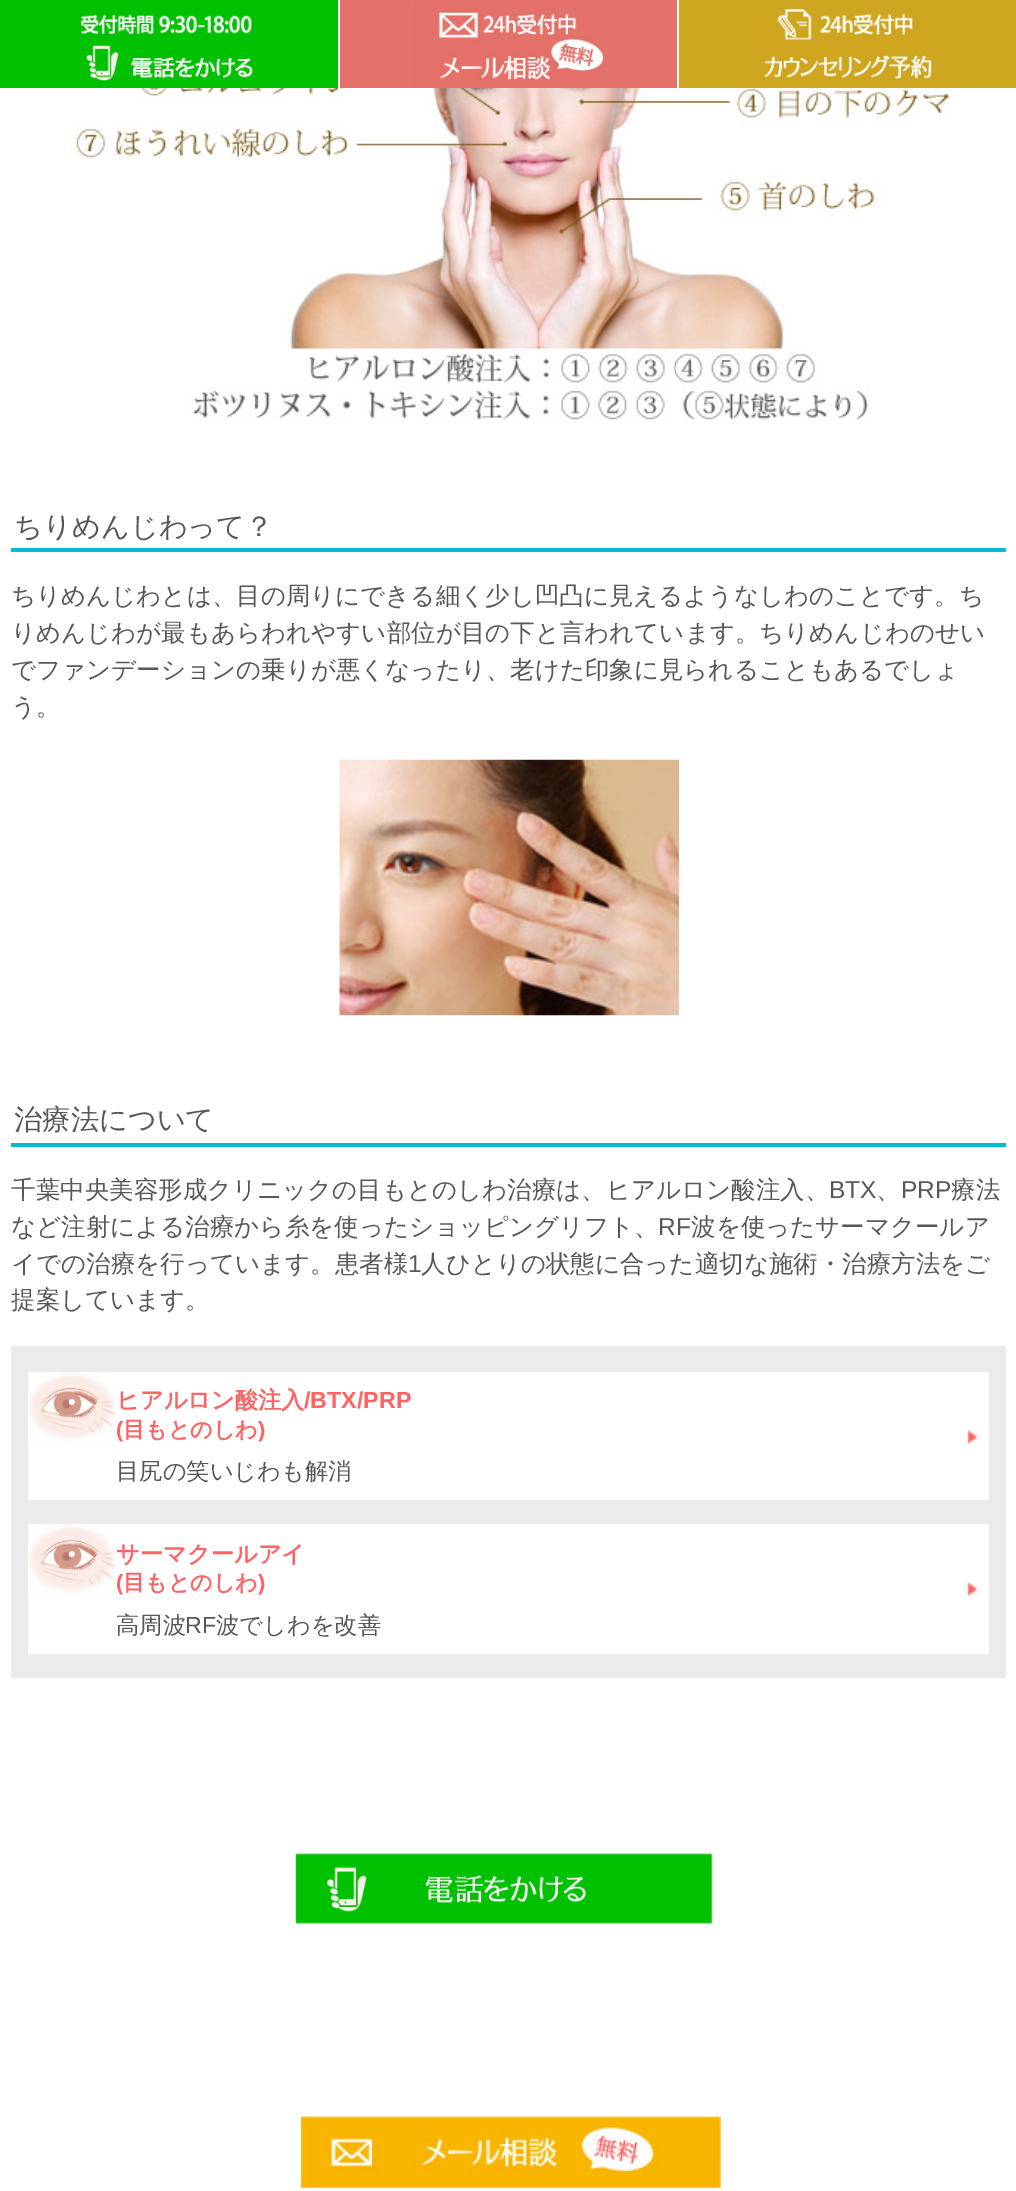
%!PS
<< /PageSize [1016 2191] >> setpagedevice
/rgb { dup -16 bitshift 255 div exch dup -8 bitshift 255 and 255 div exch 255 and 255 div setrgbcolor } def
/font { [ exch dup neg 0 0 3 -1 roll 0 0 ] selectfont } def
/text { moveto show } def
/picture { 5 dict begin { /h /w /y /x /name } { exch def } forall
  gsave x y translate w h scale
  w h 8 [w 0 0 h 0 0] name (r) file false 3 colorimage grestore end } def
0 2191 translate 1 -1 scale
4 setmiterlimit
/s1 { /WenQuanYiZenHei-Medium 28.25 font 16#595656 rgb } def
/s2 { /WenQuanYiZenHei-Medium 24.5 font 16#595656 rgb } def
/s3 { /LiberationSans-Regular 24.5 font 16#595656 rgb } def
/s4 { /WenQuanYiZenHei-Bold 23.25 font 16#FF6363 rgb } def
/s5 { /LiberationSans-Bold 23.25 font 16#FF6363 rgb } def
/s6 { /LiberationSans-Bold 22 font 16#FF6363 rgb } def
/s7 { /WenQuanYiZenHei-Bold 22 font 16#FF6363 rgb } def
/s8 { /WenQuanYiZenHei-Medium 23.25 font 16#595656 rgb } def
/s9 { /LiberationSans-Regular 23.25 font 16#595656 rgb } def
16#FFFFFF rgb
0 0 1016 2191 rectfill
16#00C100 rgb
0 0 338 88 rectfill
(pic4.raw) 70 88 883 332 picture
16#FFFFFF rgb
338 88 2 1 rectfill
(pic1.raw) 79 14 176 67 picture
16#E4716A rgb
340 0 337 88 rectfill
(pic2.raw) 411 0 193 87 picture
16#CFA620 rgb
679 0 337 88 rectfill
(pic3.raw) 759 7 175 74 picture
16#00BCD4 rgb
11 548 995 4 rectfill
s1
(ちりめんじわって？) 14 536 text
s2
(ちりめんじわとは、目の周りにできる細く少し凹凸に見えるようなしわのことです。ち) 11 604 text
(りめんじわが最もあらわれやすい部位が目の下と言われています。ちりめんじわのせい) 11 641 text
(でファンデーションの乗りが悪くなったり、老けた印象に見られることもあるでしょ) 11 678 text
(う。) 11 715 text
(pic5.raw) 339 759 340 257 picture
16#00BCD4 rgb
11 1143 995 4 rectfill
s1
(治療法について) 14 1129 text
s2
(千葉中央美容形成クリニックの目もとのしわ治療は、ヒアルロン酸注入、) 11 1198 text
s3
(BTX) 829 1198 text
(PRP) 901 1198 text
s2
(療法) 951 1198 text
(、) 876 1198 text
(など注射による治療から糸を使ったショッピングリフト、) 11 1235 text
s3
(RF) 658 1235 text
s2
(波を使ったサーマクールア) 691 1235 text
(イでの治療を行っています。患者様) 11 1272 text
s3
(1) 408 1272 text
s2
(人ひとりの状態に合った適切な施術・治療方法をご) 421 1272 text
(提案しています。) 11 1308 text
16#EBEBEB rgb
11 1346 995 332 rectfill
16#FFFFFF rgb
28 1372 961 128 rectfill
(pic6.raw) 967 1430 15 14 picture
(pic7.raw) 28 1372 88 70 picture
s4
(ヒアルロン酸注入) 116 1408 text
s5
(/BTX/PRP) 304 1408 text
s6
(\() 116 1437 text
s7
(目もとのしわ) 123 1437 text
s6
(\)) 258 1437 text
s8
(目尻の笑いじわも解消) 116 1479 text
16#FFFFFF rgb
28 1524 961 130 rectfill
(pic8.raw) 967 1582 15 15 picture
(pic9.raw) 28 1525 88 70 picture
s4
(サーマクールアイ) 116 1562 text
s6
(\() 116 1590 text
s7
(目もとのしわ) 123 1590 text
s6
(\)) 258 1590 text
s8
(高周波) 116 1633 text
s9
(RF) 185 1633 text
s8
(波でしわを改善) 216 1633 text
(pic10.raw) 295 1853 418 71 picture
(pic11.raw) 301 2116 420 72 picture
showpage
